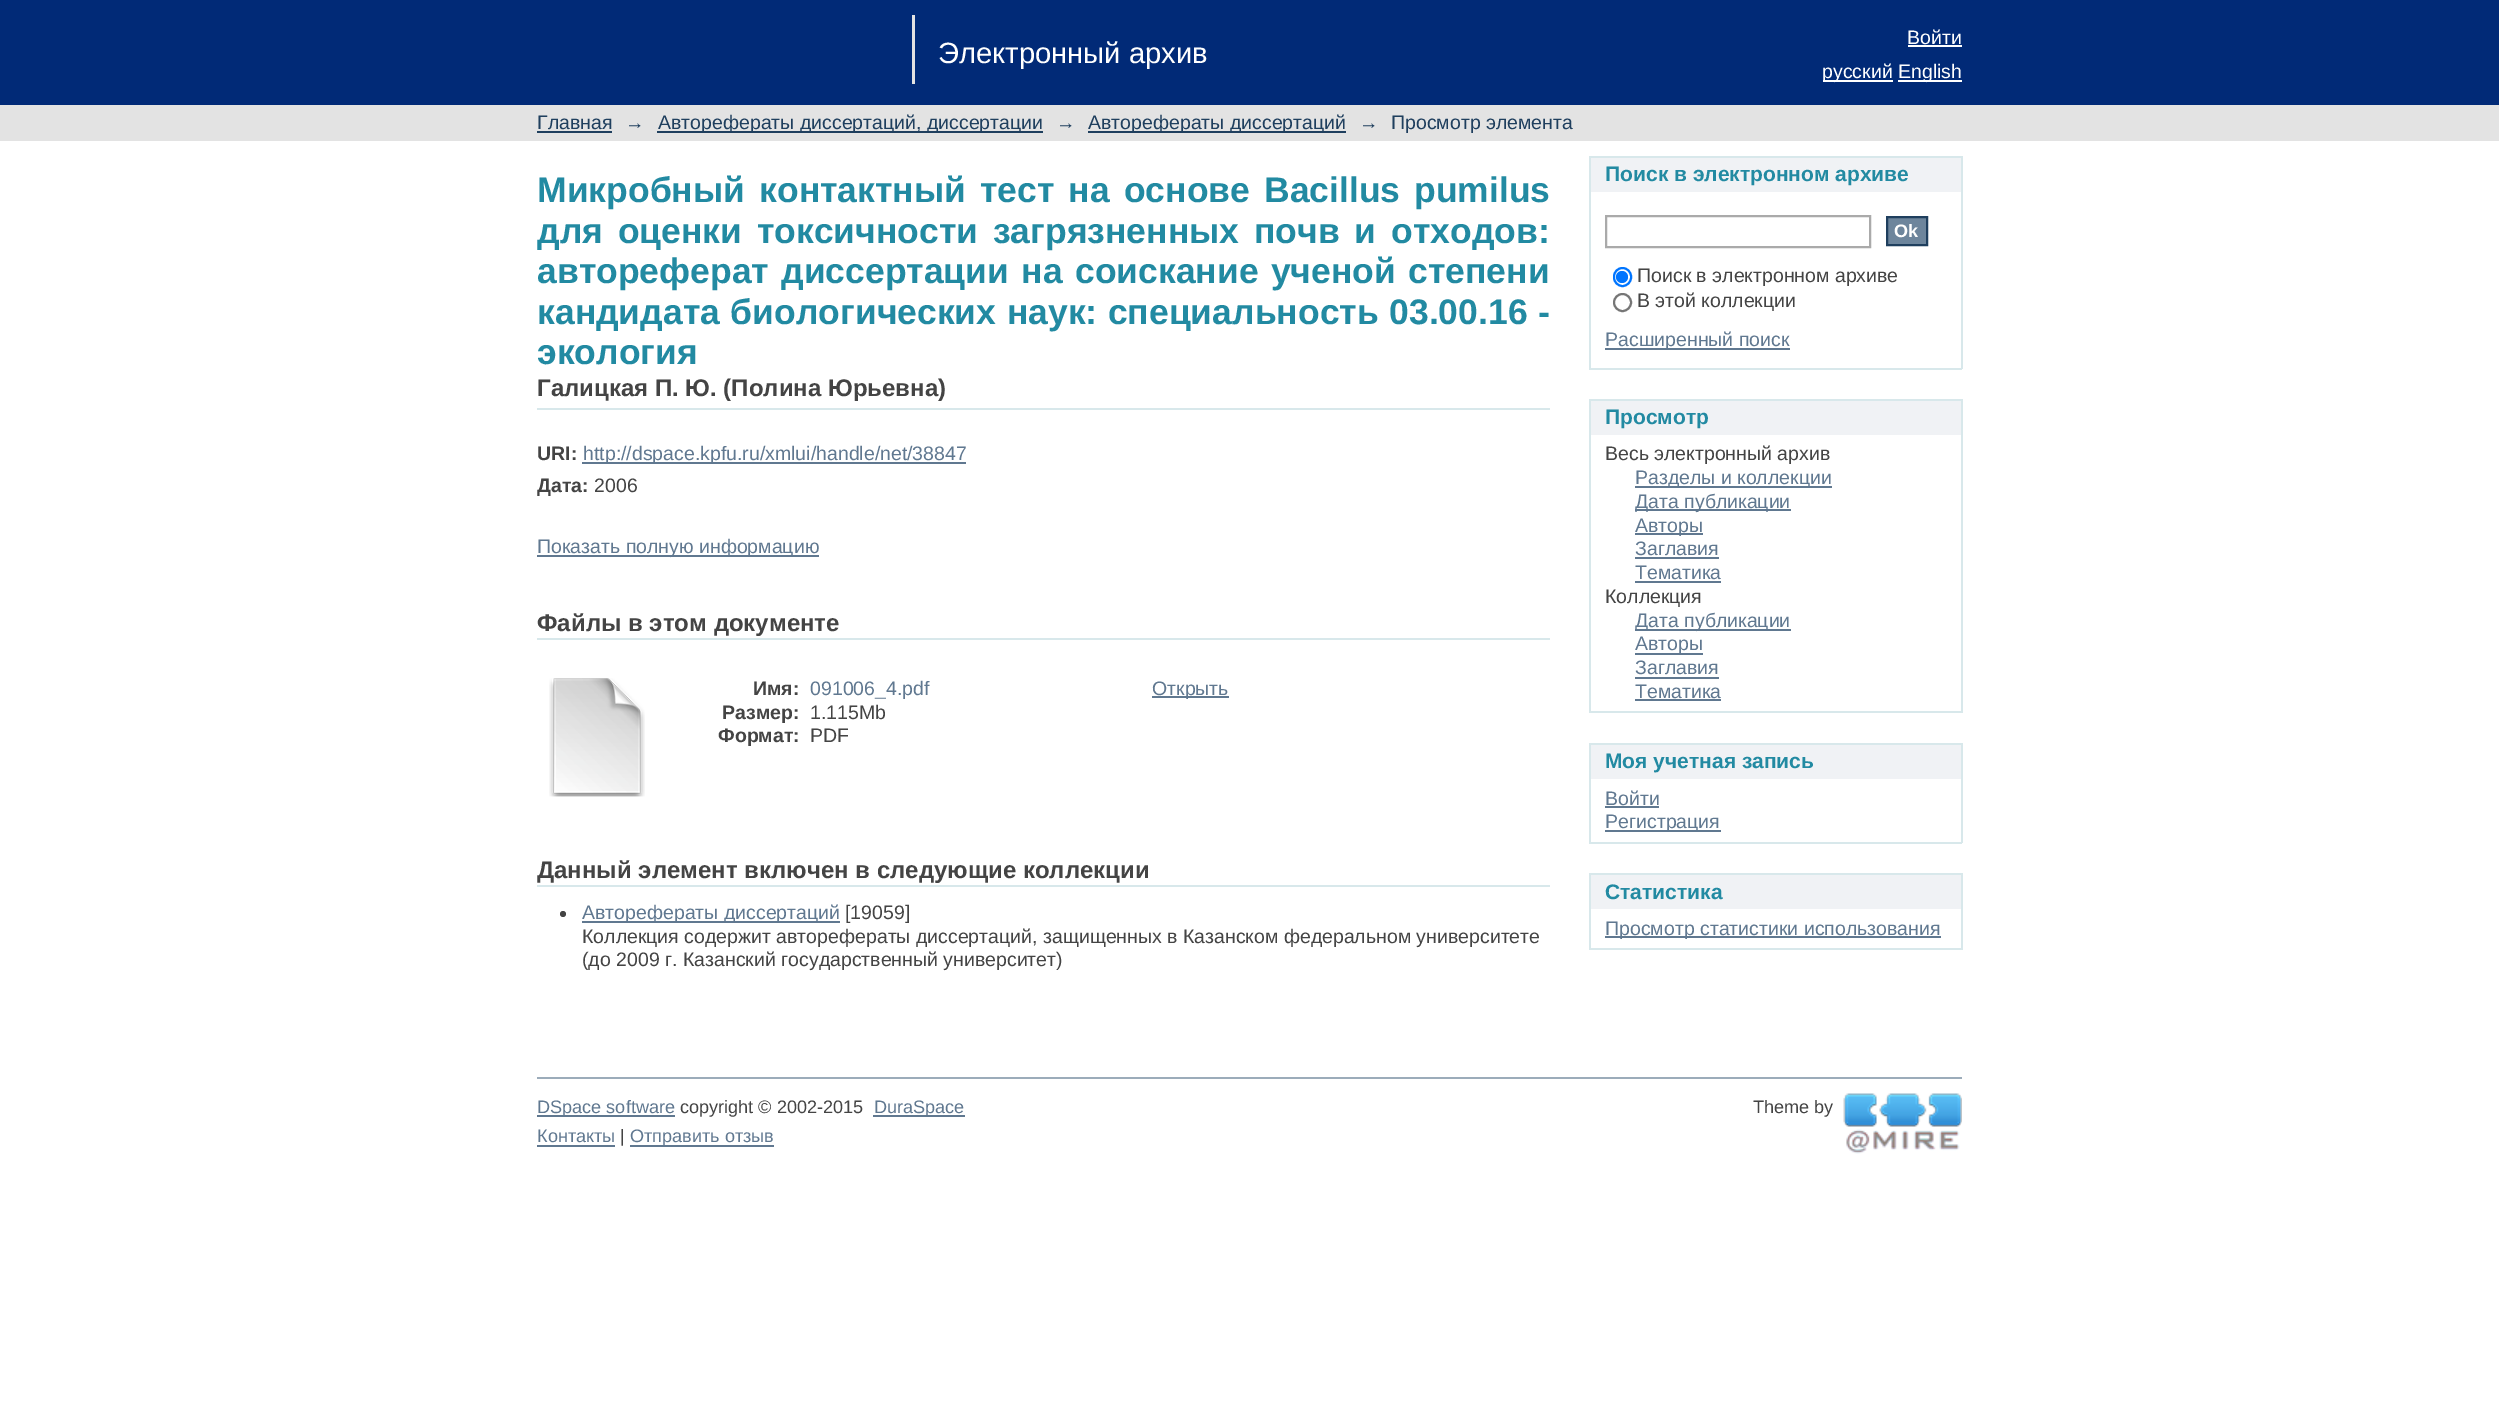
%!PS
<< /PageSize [2499 1421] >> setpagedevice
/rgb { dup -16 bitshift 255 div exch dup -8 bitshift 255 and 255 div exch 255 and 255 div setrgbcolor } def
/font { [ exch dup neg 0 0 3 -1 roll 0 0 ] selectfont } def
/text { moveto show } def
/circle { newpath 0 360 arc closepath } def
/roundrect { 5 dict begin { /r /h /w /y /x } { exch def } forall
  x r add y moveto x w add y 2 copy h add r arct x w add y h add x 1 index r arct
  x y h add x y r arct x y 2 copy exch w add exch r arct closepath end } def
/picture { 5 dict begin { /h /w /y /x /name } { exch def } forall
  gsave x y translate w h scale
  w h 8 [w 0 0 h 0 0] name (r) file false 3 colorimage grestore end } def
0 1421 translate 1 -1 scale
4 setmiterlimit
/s1 { /LiberationSans-Regular 19.5 font 16#FFFFFF rgb } def
/s2 { /LiberationSans-Regular 29.25 font 16#FFFFFF rgb } def
/s3 { /LiberationSans-Regular 19.5 font 16#1F3F5E rgb } def
/s4 { /LiberationSans-Bold 35.5 font 16#228AA2 rgb } def
/s5 { /LiberationSans-Bold 24 font 16#444444 rgb } def
/s6 { /LiberationSans-Bold 19.5 font 16#444444 rgb } def
/s7 { /LiberationSans-Regular 19.5 font 16#607890 rgb } def
/s8 { /LiberationSans-Regular 19.5 font 16#444444 rgb } def
/s9 { /LiberationSans-Bold 21 font 16#228AA2 rgb } def
/s10 { /LiberationSans-Bold 18.1 font 16#FFFFFF rgb } def
/s11 { /LiberationSans-Regular 18.1 font 16#607890 rgb } def
/s12 { /LiberationSans-Regular 18.1 font 16#444444 rgb } def
16#FFFFFF rgb
0 0 2499 1421 rectfill
16#012A77 rgb
0 0 2499 105 rectfill
s1
(Войти) 1907 44 text
1908 45 54 2 rectfill
16#E3E3E3 rgb
912 15 3 69 rectfill
s2
(Электронный архив) 938 63 text
1823 80 70 2 rectfill
s1
(русский) 1822 78 text
1898 80 64 2 rectfill
(English) 1898 78 text
16#E3E3E3 rgb
0 105 2499 36 rectfill
s3
(Главная) 537 129 text
537 131 75 2 rectfill
(→) 625 129 text
657 131 386 2 rectfill
(Авторефераты диссертаций, диссертации) 658 129 text
(→) 1056 129 text
1088 131 258 2 rectfill
(Авторефераты диссертаций) 1088 129 text
(→) 1359 129 text
(Просмотр элемента) 1391 129 text
/LiberationSans-Bold 35.5 font
16#228AA2 rgb
537 202 moveto 4.25 0 32 (Микробный контактный тест на основе Bacillus pumilus) widthshow
537 243 moveto 5 0 32 (для оценки токсичности загрязненных почв и отходов:) widthshow
537 283 moveto 2.5 0 32 (автореферат диссертации на соискание ученой степени) widthshow
537 324 moveto 0.75 0 32 (кандидата биологических наук: специальность 03.00.16 -) widthshow
(экология) 537 364 text
16#D8E8EB rgb
537 408 1013 2 rectfill
s5
(Галицкая П. Ю. \(Полина Юрьевна\)) 537 396 text
s6
(URI:) 537 460 text
16#607890 rgb
582 462 384 2 rectfill
s7
(http://dspace.kpfu.ru/xmlui/handle/net/38847) 583 460 text
s6
(Дата:) 537 492 text
s8
(2006) 594 492 text
16#607890 rgb
537 555 282 2 rectfill
(Показать полную информацию) 537 553 text
16#D8E8EB rgb
537 638 1013 2 rectfill
s5
(Файлы в этом документе) 537 631 text
(pic1.raw) 549 678 96 119 picture
s6
(Имя:) 753 695 text
s7
(091006_4.pdf) 810 695 text
s6
(Размер:) 722 719 text
s8
(1.115Mb) 810 719 text
s6
(Формат:) 718 742 text
s8
(PDF) 810 742 text
16#607890 rgb
1152 696 77 2 rectfill
(Открыть) 1152 695 text
16#D8E8EB rgb
537 885 1013 2 rectfill
s5
(Данный элемент включен в следующие коллекции) 537 878 text
563 914 3 circle fill
16#607890 rgb
582 921 258 2 rectfill
s7
(Авторефераты диссертаций) 582 919 text
s8
([19059]) 845 919 text
(Коллекция содержит авторефераты диссертаций, защищенных в Казанском федеральном университете) 582 943 text
(\(до 2009 г. Казанский государственный университет\)) 582 966 text
16#F0F2F5 rgb
1591 158 370 34 rectfill
16#D8E8EB rgb
1589 156 373 2 rectfill
1961 156 2 213 rectfill
1589 156 2 36 rectfill
s9
(Поиск в электронном архиве) 1605 181 text
16#D8E8EB rgb
1589 368 373 2 rectfill
1589 192 2 177 rectfill
16#AAAAAA rgb
2 setlinewidth
1606 216 264 31 rectstroke
16#6D859C rgb
1887 217 moveto 1927 217 lineto 1927 245 lineto 1887 245 lineto closepath gsave fill grestore
16#1F3F5E rgb
stroke
s10
(Ok) 1894 237 text
16#0075FF rgb
1614 268 17 18 8.5 roundrect stroke
1622 277 6 circle fill
s8
(Поиск в электронном архиве) 1637 282 text
16#767676 rgb
1622.5 302.5 8.5 circle stroke
s8
(В этой коллекции) 1637 307 text
16#607890 rgb
1605 348 185 2 rectfill
(Расширенный поиск) 1605 346 text
16#F0F2F5 rgb
1591 401 370 34 rectfill
16#D8E8EB rgb
1589 399 373 2 rectfill
1961 399 2 314 rectfill
1589 399 2 36 rectfill
s9
(Просмотр) 1605 424 text
16#D8E8EB rgb
1589 711 373 2 rectfill
1589 435 2 278 rectfill
s8
(Весь электронный архив) 1605 460 text
16#607890 rgb
1635 486 197 2 rectfill
(Разделы и коллекции) 1635 484 text
1635 509 156 2 rectfill
(Дата публикации) 1635 508 text
1635 533 68 2 rectfill
(Авторы) 1635 532 text
(Заглавия) 1635 555 text
1635 557 84 2 rectfill
(Тематика) 1635 579 text
1635 581 86 2 rectfill
s8
(Коллекция) 1605 603 text
16#607890 rgb
1635 629 156 2 rectfill
(Дата публикации) 1635 627 text
1635 653 68 2 rectfill
(Авторы) 1635 650 text
(Заглавия) 1635 674 text
1635 677 84 2 rectfill
(Тематика) 1635 698 text
1635 699 86 2 rectfill
16#F0F2F5 rgb
1591 745 370 34 rectfill
16#D8E8EB rgb
1589 743 373 2 rectfill
1961 743 2 100 rectfill
1589 743 2 36 rectfill
s9
(Моя учетная запись) 1605 768 text
16#D8E8EB rgb
1589 842 373 2 rectfill
1589 779 2 64 rectfill
s7
(Войти) 1605 805 text
1605 806 54 2 rectfill
1605 830 116 2 rectfill
(Регистрация) 1605 828 text
16#F0F2F5 rgb
1591 875 370 34 rectfill
16#D8E8EB rgb
1589 873 373 2 rectfill
1961 873 2 77 rectfill
1589 873 2 36 rectfill
s9
(Статистика) 1605 899 text
16#D8E8EB rgb
1589 948 373 2 rectfill
1589 909 2 41 rectfill
16#607890 rgb
1605 936 336 2 rectfill
s7
(Просмотр статистики использования) 1605 935 text
16#9CACBA rgb
537 1077 1425 2 rectfill
16#607890 rgb
537 1115 138 2 rectfill
s11
(DSpace software) 537 1113 text
s12
(copyright © 2002-2015) 680 1113 text
16#607890 rgb
873 1115 92 2 rectfill
(DuraSpace) 874 1113 text
s12
(Theme by) 1753 1113 text
(pic2.raw) 1843 1093 119 61 picture
s11
(Контакты) 537 1142 text
537 1145 78 2 rectfill
s12
(|) 620 1142 text
16#607890 rgb
630 1145 144 2 rectfill
(Отправить отзыв) 630 1142 text
showpage
